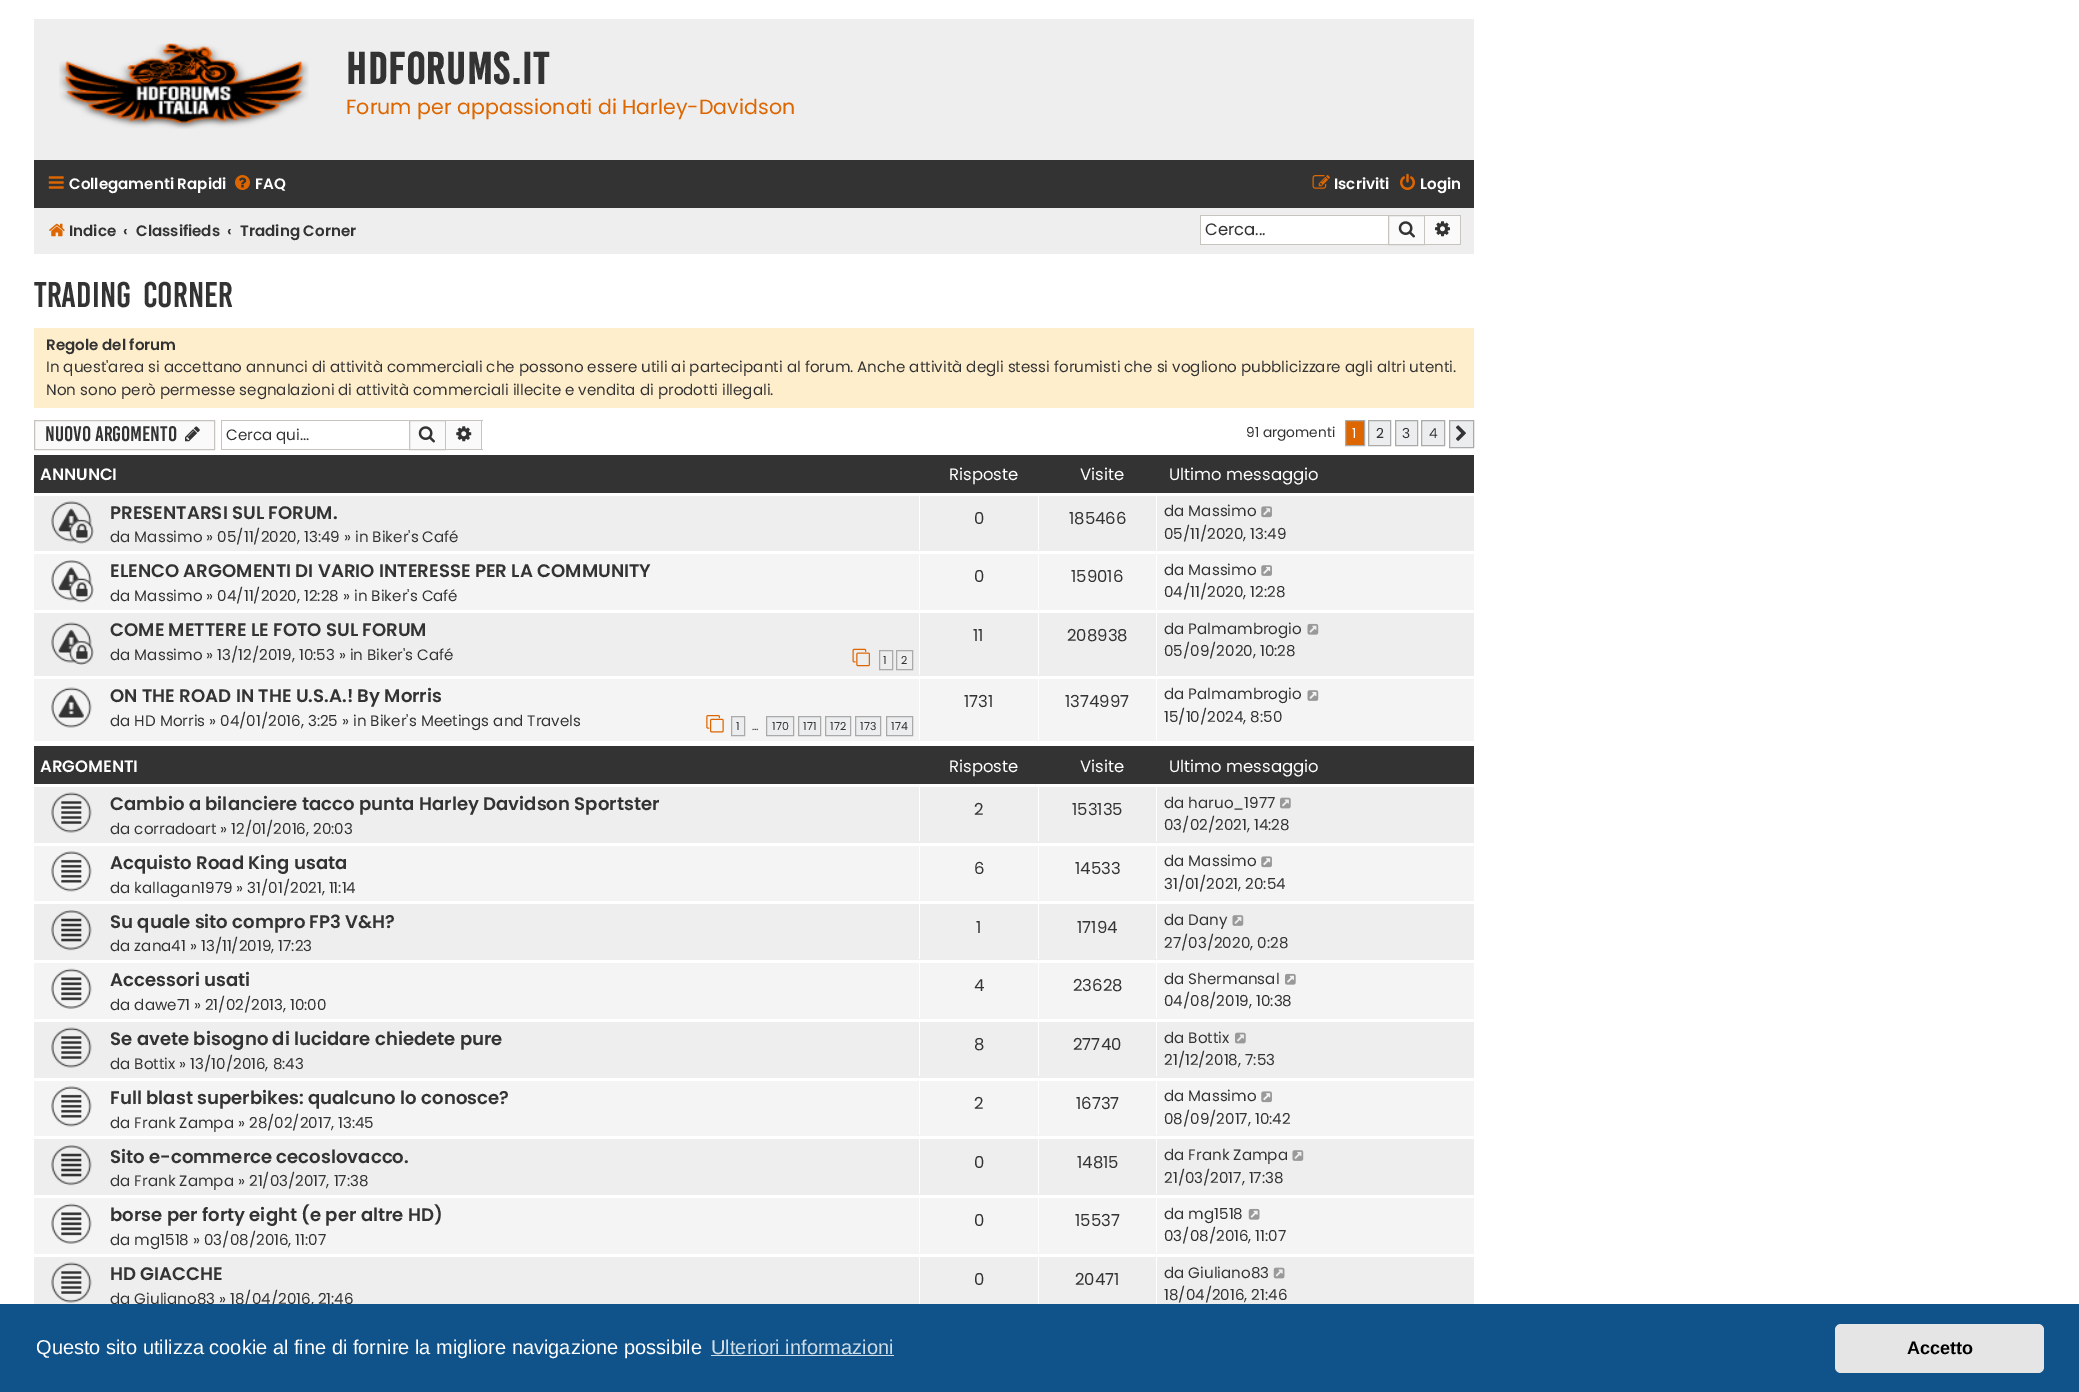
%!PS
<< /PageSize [2079 1392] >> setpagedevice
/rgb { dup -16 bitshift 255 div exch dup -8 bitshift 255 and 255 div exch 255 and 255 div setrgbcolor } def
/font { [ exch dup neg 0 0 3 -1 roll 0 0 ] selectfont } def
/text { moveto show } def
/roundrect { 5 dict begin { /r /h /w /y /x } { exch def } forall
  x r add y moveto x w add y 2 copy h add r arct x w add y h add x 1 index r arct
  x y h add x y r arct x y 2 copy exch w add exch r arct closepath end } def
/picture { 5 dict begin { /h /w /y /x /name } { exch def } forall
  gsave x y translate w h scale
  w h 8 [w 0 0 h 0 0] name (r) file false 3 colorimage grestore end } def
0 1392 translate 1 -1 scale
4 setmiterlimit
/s1 { /Poppins-Regular 20.6 font 16#DD6600 rgb } def
/s2 { /Poppins-SemiBold 15.12 font 16#FFFFFF rgb } def
/s3 { /Poppins-SemiBold 15.12 font 16#333333 rgb } def
/s4 { /Poppins-Regular 16.5 font 16#333333 rgb } def
/s5 { /Poppins-Regular 15.12 font 16#333333 rgb } def
/s6 { /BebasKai-Regular 16.25 font 16#333333 rgb } def
/s7 { /Poppins-Regular 13.75 font 16#333333 rgb } def
/s8 { /Poppins-Regular 13.75 font 16#FFFFFF rgb } def
/s9 { /Poppins-SemiBold 16.5 font 16#FFFFFF rgb } def
/s10 { /Poppins-Regular 16.5 font 16#FFFFFF rgb } def
/s11 { /Poppins-SemiBold 18.15 font 16#333333 rgb } def
/s12 { /Poppins-Regular 11 font 16#333333 rgb } def
/s13 { /LiberationSans-Regular 20 font 16#FFFFFF rgb } def
/s14 { /LiberationSans-Regular 20 font 16#CFDDE8 rgb } def
/s15 { /LiberationSans-Bold 18 font 16#000000 rgb } def
16#FFFFFF rgb
0 0 2079 1392 rectfill
16#EEEEEE rgb
34 19 1440 141 rectfill
(pic1.raw) 59 43 250 86 picture
/BebasKai-Bold 34.5 font
16#333333 rgb
346 84 moveto 1.25 0 (HDForums.it) ashow
s1
(Forum per appassionati di Harley-Davidson) 346 114 text
16#333333 rgb
34 160 1440 48 rectfill
(pic2.raw) 48 176 16 13 picture
s2
(Collegamenti Rapidi) 69 189 text
(pic3.raw) 235 175 15 15 picture
(FAQ) 255 189 text
(pic4.raw) 1312 175 18 14 picture
(Iscriviti) 1334 189 text
(pic5.raw) 1400 173 15 17 picture
(Login) 1420 189 text
16#EEEEEE rgb
34 208 1440 46 rectfill
(pic6.raw) 49 223 16 14 picture
s3
(Indice) 69 236 text
(‹) 123 236 text
(Classifieds) 136 236 text
(‹) 227 236 text
(Trading Corner) 240 236 text
16#FFFFFF rgb
1201 216 187 28 rectfill
16#C7C3BF rgb
1200 215 188 1 rectfill
1200 244 188 1 rectfill
1200 215 1 30 rectfill
s4
(Cerca...) 1205 235 text
16#FAFAFA rgb
1388.5 215.5 moveto 1424.5 215.5 lineto 1424.5 244.5 lineto 1388.5 244.5 lineto closepath gsave fill grestore
16#C7C3BF rgb
stroke
(pic7.raw) 1398 221 17 17 picture
16#FAFAFA rgb
1425 216 35 28 rectfill
16#C7C3BF rgb
1425 215 36 1 rectfill
1460 215 1 30 rectfill
1425 244 36 1 rectfill
(pic8.raw) 1435 221 15 16 picture
/BebasKai-Regular 27.5 font
16#333333 rgb
34 307 moveto 5 0 32 (Trading Corner) widthshow
16#FFEECC rgb
34 328 1440 80 rectfill
s3
(Regole del forum) 46 350 text
s5
(In quest'area si accettano annunci di attività commerciali che possono essere utili ai partecipanti al forum. Anche attività degli stessi forumisti che si vogliono pubblicizzare agli altri utenti.) 46 372 text
(Non sono però permesse segnalazioni di attività commerciali illecite e vendita di prodotti illegali.) 46 395 text
16#FAFAFA rgb
34.5 420.5 moveto 214.5 420.5 lineto 214.5 449.5 lineto 34.5 449.5 lineto closepath gsave fill grestore
16#C7C3BF rgb
stroke
s6
(Nuovo argomento) 45 441 text
(pic9.raw) 185 426 15 16 picture
16#C7C3BF rgb
221 420 188 1 rectfill
221 449 188 1 rectfill
221 420 1 30 rectfill
s5
(Cerca qui...) 226 440 text
16#FAFAFA rgb
409.5 420.5 moveto 445.5 420.5 lineto 445.5 449.5 lineto 409.5 449.5 lineto closepath gsave fill grestore
16#C7C3BF rgb
stroke
(pic7.raw) 418 426 17 17 picture
16#FAFAFA rgb
446 421 35 28 rectfill
16#C7C3BF rgb
446 420 37 1 rectfill
481 420 1 30 rectfill
446 449 37 1 rectfill
(pic10.raw) 456 426 16 16 picture
s7
(91 argomenti) 1246 437 text
16#DD6600 rgb
1345.5 420.5 moveto 1364.5 420.5 lineto 1364.5 445.5 lineto 1345.5 445.5 lineto closepath gsave fill grestore
16#AAAAAA rgb
stroke
s8
(1) 1352 438 text
16#ECEDEE rgb
1368.5 420.5 moveto 1390.5 420.5 lineto 1390.5 445.5 lineto 1368.5 445.5 lineto closepath gsave fill grestore
16#AAAAAA rgb
stroke
s7
(2) 1376 438 text
16#ECEDEE rgb
1395.5 420.5 moveto 1417.5 420.5 lineto 1417.5 445.5 lineto 1395.5 445.5 lineto closepath gsave fill grestore
16#AAAAAA rgb
stroke
s7
(3) 1402 438 text
16#ECEDEE rgb
1421.5 420.5 moveto 1444.5 420.5 lineto 1444.5 445.5 lineto 1421.5 445.5 lineto closepath gsave fill grestore
16#AAAAAA rgb
stroke
s7
(4) 1429 438 text
16#ECEDEE rgb
1449.5 420.5 moveto 1473.5 420.5 lineto 1473.5 447.5 lineto 1449.5 447.5 lineto closepath gsave fill grestore
16#AAAAAA rgb
stroke
(pic11.raw) 1455 425 11 16 picture
16#333333 rgb
34 455 1440 38 rectfill
s9
(ANNUNCI) 40 480 text
s10
(Risposte) 949 480 text
(Visite) 1080 480 text
(Ultimo messaggio) 1169 480 text
16#EEEEEE rgb
34 496 1440 55 rectfill
(pic12.raw) 51 501 43 43 picture
s11
(PRESENTARSI SUL FORUM.) 110 519 text
s5
(da Massimo » 05/11/2020, 13:49 » in Biker's Café) 110 542 text
16#FFFFFF rgb
919 495 1 55 rectfill
s4
(0) 974 524 text
16#FFFFFF rgb
1038 495 1 55 rectfill
s4
(185466) 1069 524 text
16#FFFFFF rgb
1156 495 1 55 rectfill
s5
(da Massimo) 1164 516 text
(pic13.raw) 1261 506 11 12 picture
(05/11/2020, 13:49) 1164 539 text
16#F4F4F4 rgb
34 554 1440 56 rectfill
(pic14.raw) 51 560 43 43 picture
s11
(ELENCO ARGOMENTI DI VARIO INTERESSE PER LA COMMUNITY) 110 577 text
s5
(da Massimo » 04/11/2020, 12:28 » in Biker's Café) 110 601 text
16#FFFFFF rgb
919 554 1 55 rectfill
s4
(0) 974 582 text
16#FFFFFF rgb
1038 554 1 55 rectfill
s4
(159016) 1071 582 text
16#FFFFFF rgb
1156 554 1 55 rectfill
s5
(da Massimo) 1164 575 text
(pic15.raw) 1261 565 11 11 picture
(04/11/2020, 12:28) 1164 597 text
16#EEEEEE rgb
34 613 1440 63 rectfill
(pic16.raw) 51 622 43 43 picture
s11
(COME METTERE LE FOTO SUL FORUM) 110 636 text
s5
(da Massimo » 13/12/2019, 10:53 » in Biker's Café) 110 660 text
(pic17.raw) 852 648 18 19 picture
16#AAAAAA rgb
879.5 650.5 13 19 rectstroke
s12
(1) 883 664 text
16#AAAAAA rgb
896.5 650.5 16 19 rectstroke
s12
(2) 901 664 text
16#FFFFFF rgb
919 613 1 62 rectfill
s4
(11) 973 641 text
16#FFFFFF rgb
1038 613 1 62 rectfill
s4
(208938) 1067 641 text
16#FFFFFF rgb
1156 613 1 62 rectfill
s5
(da Palmambrogio) 1164 634 text
(pic18.raw) 1307 623 12 12 picture
(05/09/2020, 10:28) 1164 656 text
16#F4F4F4 rgb
34 679 1440 62 rectfill
(pic19.raw) 51 687 41 41 picture
s11
(ON THE ROAD IN THE U.S.A.! By Morris) 110 702 text
s5
(da HD Morris » 04/01/2016, 3:25 » in Biker's Meetings and Travels) 110 726 text
(pic20.raw) 706 715 18 18 picture
16#ECEDEE rgb
731.5 716.5 moveto 744.5 716.5 lineto 744.5 735.5 lineto 731.5 735.5 lineto closepath gsave fill grestore
16#AAAAAA rgb
stroke
s12
(1) 736 730 text
(…) 752 730 text
16#ECEDEE rgb
766.5 716.5 moveto 793.5 716.5 lineto 793.5 735.5 lineto 766.5 735.5 lineto closepath gsave fill grestore
16#AAAAAA rgb
stroke
s12
(170) 772 730 text
16#ECEDEE rgb
798.5 716.5 moveto 820.5 716.5 lineto 820.5 735.5 lineto 798.5 735.5 lineto closepath gsave fill grestore
16#AAAAAA rgb
stroke
s12
(171) 803 730 text
16#ECEDEE rgb
825.5 716.5 moveto 850.5 716.5 lineto 850.5 735.5 lineto 825.5 735.5 lineto closepath gsave fill grestore
16#AAAAAA rgb
stroke
s12
(172) 830 730 text
16#ECEDEE rgb
855.5 716.5 moveto 880.5 716.5 lineto 880.5 735.5 lineto 855.5 735.5 lineto closepath gsave fill grestore
16#AAAAAA rgb
stroke
s12
(173) 860 730 text
16#ECEDEE rgb
886.5 716.5 moveto 912.5 716.5 lineto 912.5 735.5 lineto 886.5 735.5 lineto closepath gsave fill grestore
16#AAAAAA rgb
stroke
s12
(174) 891 730 text
16#FFFFFF rgb
919 679 1 61 rectfill
s4
(1731) 964 707 text
16#FFFFFF rgb
1038 679 1 61 rectfill
s4
(1374997) 1065 707 text
16#FFFFFF rgb
1156 679 1 61 rectfill
s5
(da Palmambrogio) 1164 699 text
(pic21.raw) 1307 690 12 11 picture
(15/10/2024, 8:50) 1164 722 text
34 746 1440 38 rectfill
s9
(ARGOMENTI) 40 772 text
s10
(Risposte) 949 772 text
(Visite) 1080 772 text
(Ultimo messaggio) 1169 772 text
16#EEEEEE rgb
34 787 1440 56 rectfill
(pic22.raw) 51 792 41 41 picture
s11
(Cambio a bilanciere tacco punta Harley Davidson Sportster) 110 810 text
s5
(da corradoart » 12/01/2016, 20:03) 110 834 text
16#FFFFFF rgb
919 786 1 55 rectfill
s4
(2) 974 815 text
16#FFFFFF rgb
1038 786 1 55 rectfill
s4
(153135) 1072 815 text
16#FFFFFF rgb
1156 786 1 55 rectfill
s5
(da haruo_1977) 1164 808 text
(pic23.raw) 1280 797 11 12 picture
(03/02/2021, 14:28) 1164 830 text
16#F4F4F4 rgb
34 846 1440 55 rectfill
(pic24.raw) 51 851 41 41 picture
s11
(Acquisto Road King usata) 110 869 text
s5
(da kallagan1979 » 31/01/2021, 11:14) 110 893 text
16#FFFFFF rgb
919 845 1 55 rectfill
s4
(6) 974 874 text
16#FFFFFF rgb
1038 845 1 55 rectfill
s4
(14533) 1075 874 text
16#FFFFFF rgb
1156 845 1 55 rectfill
s5
(da Massimo) 1164 866 text
(pic25.raw) 1261 856 11 12 picture
(31/01/2021, 20:54) 1164 889 text
16#EEEEEE rgb
34 904 1440 56 rectfill
(pic26.raw) 51 910 41 41 picture
s11
(Su quale sito compro FP3 V&H?) 110 928 text
s5
(da zana41 » 13/11/2019, 17:23) 110 951 text
16#FFFFFF rgb
919 904 1 55 rectfill
s4
(1) 976 933 text
16#FFFFFF rgb
1038 904 1 55 rectfill
s4
(17194) 1077 933 text
16#FFFFFF rgb
1156 904 1 55 rectfill
s5
(da Dany) 1164 925 text
(pic27.raw) 1232 915 12 11 picture
(27/03/2020, 0:28) 1164 948 text
16#F4F4F4 rgb
34 963 1440 56 rectfill
(pic28.raw) 51 968 41 41 picture
s11
(Accessori usati) 110 986 text
s5
(da dawe71 » 21/02/2013, 10:00) 110 1010 text
16#FFFFFF rgb
919 963 1 55 rectfill
s4
(4) 974 991 text
16#FFFFFF rgb
1038 963 1 55 rectfill
s4
(23628) 1073 991 text
16#FFFFFF rgb
1156 963 1 55 rectfill
s5
(da Shermansal) 1164 984 text
(pic29.raw) 1285 973 11 12 picture
(04/08/2019, 10:38) 1164 1006 text
16#EEEEEE rgb
34 1022 1440 56 rectfill
(pic22.raw) 51 1027 41 41 picture
s11
(Se avete bisogno di lucidare chiedete pure) 110 1045 text
s5
(da Bottix » 13/10/2016, 8:43) 110 1069 text
16#FFFFFF rgb
919 1021 1 55 rectfill
s4
(8) 974 1050 text
16#FFFFFF rgb
1038 1021 1 55 rectfill
s4
(27740) 1073 1050 text
16#FFFFFF rgb
1156 1021 1 55 rectfill
s5
(da Bottix) 1164 1043 text
(pic23.raw) 1235 1032 11 12 picture
(21/12/2018, 7:53) 1164 1065 text
16#F4F4F4 rgb
34 1081 1440 55 rectfill
(pic24.raw) 51 1086 41 41 picture
s11
(Full blast superbikes: qualcuno lo conosce?) 110 1104 text
s5
(da Frank Zampa » 28/02/2017, 13:45) 110 1128 text
16#FFFFFF rgb
919 1080 1 55 rectfill
s4
(2) 974 1109 text
16#FFFFFF rgb
1038 1080 1 55 rectfill
s4
(16737) 1076 1109 text
16#FFFFFF rgb
1156 1080 1 55 rectfill
s5
(da Massimo) 1164 1101 text
(pic25.raw) 1261 1091 11 12 picture
(08/09/2017, 10:42) 1164 1124 text
16#EEEEEE rgb
34 1139 1440 56 rectfill
(pic30.raw) 51 1145 41 41 picture
s11
(Sito e-commerce cecoslovacco.) 110 1163 text
s5
(da Frank Zampa » 21/03/2017, 17:38) 110 1186 text
16#FFFFFF rgb
919 1139 1 55 rectfill
s4
(0) 974 1168 text
16#FFFFFF rgb
1038 1139 1 55 rectfill
s4
(14815) 1077 1168 text
16#FFFFFF rgb
1156 1139 1 55 rectfill
s5
(da Frank Zampa) 1164 1160 text
(pic27.raw) 1292 1150 12 11 picture
(21/03/2017, 17:38) 1164 1183 text
16#F4F4F4 rgb
34 1198 1440 56 rectfill
(pic28.raw) 51 1203 41 41 picture
s11
(borse per forty eight \(e per altre HD\)) 110 1221 text
s5
(da mg1518 » 03/08/2016, 11:07) 110 1245 text
16#FFFFFF rgb
919 1198 1 55 rectfill
s4
(0) 974 1226 text
16#FFFFFF rgb
1038 1198 1 55 rectfill
s4
(15537) 1075 1226 text
16#FFFFFF rgb
1156 1198 1 55 rectfill
s5
(da mg1518) 1164 1219 text
(pic31.raw) 1248 1208 12 12 picture
(03/08/2016, 11:07) 1164 1241 text
16#EEEEEE rgb
34 1257 1440 47 rectfill
(pic22.raw) 51 1262 41 41 picture
s11
(HD GIACCHE) 110 1280 text
s5
(da Giuliano83 » 18/04/2016, 21:46) 110 1304 text
16#FFFFFF rgb
919 1256 1 55 rectfill
s4
(0) 974 1285 text
16#FFFFFF rgb
1038 1256 1 55 rectfill
s4
(20471) 1075 1285 text
16#FFFFFF rgb
1156 1256 1 55 rectfill
s5
(da Giuliano83) 1164 1278 text
(pic32.raw) 1273 1267 12 12 picture
(18/04/2016, 21:46) 1164 1300 text
16#0F538A rgb
0 1304 2079 88 rectfill
s13
(Questo sito utilizza cookie al fine di fornire la migliore navigazione possibile) 36 1354 text
s14
(Ulteriori informazioni) 711 1354 text
711 1355 183 1 rectfill
16#E5E5E5 rgb
1835 1324 209 49 6 roundrect fill
s15
(Accetto) 1907 1354 text
showpage
